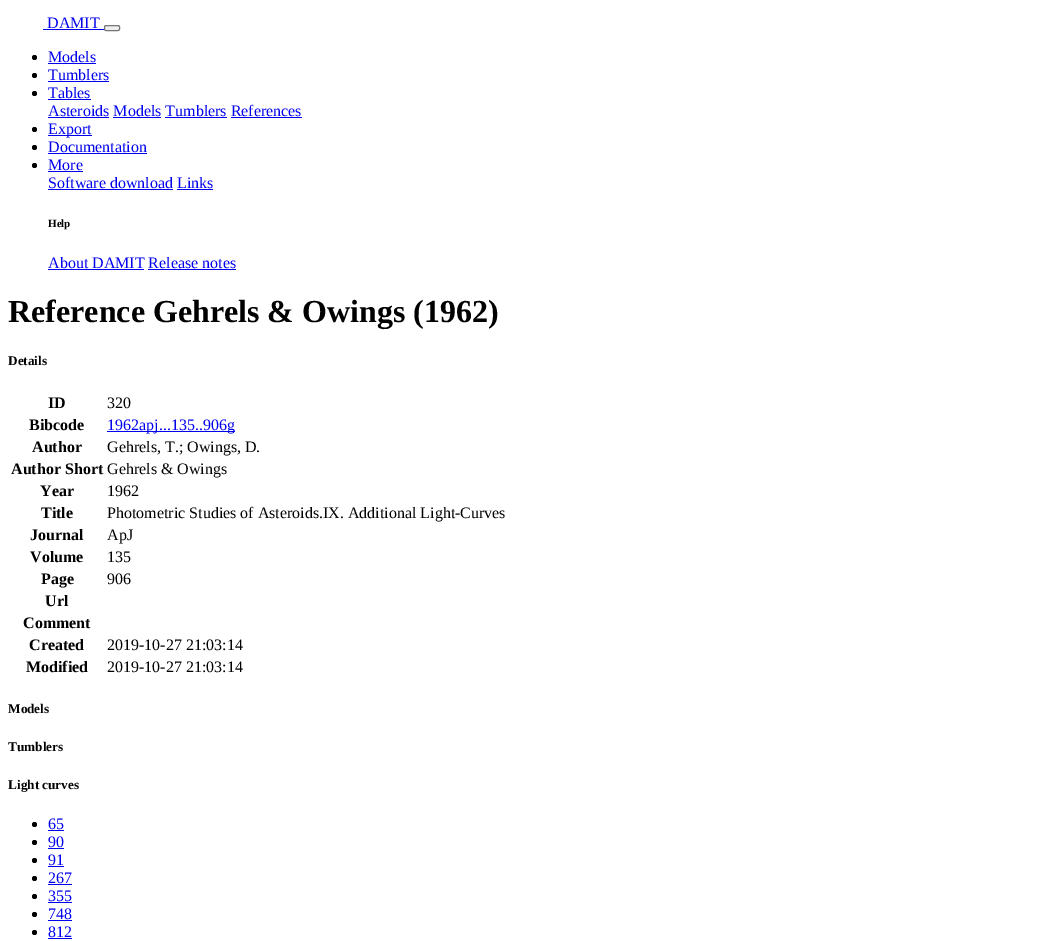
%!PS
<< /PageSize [1041 941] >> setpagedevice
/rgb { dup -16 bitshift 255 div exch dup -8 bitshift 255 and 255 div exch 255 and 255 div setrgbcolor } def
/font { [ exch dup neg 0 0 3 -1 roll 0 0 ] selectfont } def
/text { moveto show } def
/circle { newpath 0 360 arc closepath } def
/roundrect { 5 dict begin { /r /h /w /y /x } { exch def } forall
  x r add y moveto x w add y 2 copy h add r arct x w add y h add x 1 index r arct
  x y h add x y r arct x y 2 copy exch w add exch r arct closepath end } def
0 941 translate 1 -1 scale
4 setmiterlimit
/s1 { /LiberationSerif-Regular 16 font 16#0000EE rgb } def
/s2 { /LiberationSerif-Bold 11 font 16#000000 rgb } def
/s3 { /LiberationSerif-Bold 32 font 16#000000 rgb } def
/s4 { /LiberationSerif-Bold 13.25 font 16#000000 rgb } def
/s5 { /LiberationSerif-Bold 16 font 16#000000 rgb } def
/s6 { /LiberationSerif-Regular 16 font 16#000000 rgb } def
16#FFFFFF rgb
0 0 1041 941 rectfill
s1
(DAMIT) 47 28 text
43 29 61 1 rectfill
16#EFEFEF rgb
104.5 25.5 15 5 1.5 roundrect gsave fill grestore
16#767676 rgb
stroke
16#000000 rgb
34.5 57.5 2.5 circle fill
s1
(Models) 48 62 text
48 63 48 1 rectfill
16#000000 rgb
34.5 75.5 2.5 circle fill
s1
(Tumblers) 48 80 text
48 81 61 1 rectfill
16#000000 rgb
34.5 93.5 2.5 circle fill
s1
(Tables) 48 98 text
48 99 43 1 rectfill
(Asteroids Models Tumblers References) 48 116 text
48 117 61 1 rectfill
113 117 48 1 rectfill
165 117 62 1 rectfill
231 117 71 1 rectfill
16#000000 rgb
34.5 129.5 2.5 circle fill
16#0000EE rgb
48 135 44 1 rectfill
(Export) 48 134 text
16#000000 rgb
34.5 147.5 2.5 circle fill
s1
(Documentation) 48 152 text
48 153 99 1 rectfill
16#000000 rgb
34.5 165.5 2.5 circle fill
s1
(More) 48 170 text
48 171 35 1 rectfill
(Software download Links) 48 188 text
48 189 125 1 rectfill
177 189 36 1 rectfill
s2
(Help) 48 227 text
s1
(About DAMIT Release notes) 48 268 text
48 269 96 1 rectfill
148 269 88 1 rectfill
s3
(Reference Gehrels & Owings \(1962\)) 8 322 text
s4
(Details) 8 365 text
s5
(ID) 48 408 text
s6
(320) 107 408 text
s5
(Bibcode) 29 430 text
16#0000EE rgb
107 431 128 1 rectfill
s1
(1962apj...135..906g) 107 430 text
s5
(Author) 32 452 text
s6
(Gehrels, T.; Owings, D.) 107 452 text
s5
(Author Short) 11 474 text
s6
(Gehrels & Owings) 107 474 text
s5
(Year) 40 496 text
s6
(1962) 107 496 text
s5
(Title) 41 518 text
s6
(Photometric Studies of Asteroids.IX. Additional Light-Curves) 107 518 text
s5
(Journal) 30 540 text
s6
(ApJ) 107 540 text
s5
(Volume) 30 562 text
s6
(135) 107 562 text
s5
(Page) 41 584 text
s6
(906) 107 584 text
s5
(Url) 45 606 text
(Comment) 23 628 text
(Created) 29 650 text
s6
(2019-10-27 21:03:14) 107 650 text
s5
(Modified) 26 672 text
s6
(2019-10-27 21:03:14) 107 672 text
s4
(Models) 8 713 text
(Tumblers) 8 751 text
(Light curves) 8 789 text
34.5 824.5 2.5 circle fill
s1
(65) 48 829 text
48 830 16 1 rectfill
16#000000 rgb
34.5 842.5 2.5 circle fill
s1
(90) 48 847 text
48 848 16 1 rectfill
16#000000 rgb
34.5 860.5 2.5 circle fill
s1
(91) 48 865 text
48 866 16 1 rectfill
16#000000 rgb
34.5 878.5 2.5 circle fill
s1
(267) 48 883 text
48 884 24 1 rectfill
16#000000 rgb
34.5 896.5 2.5 circle fill
s1
(355) 48 901 text
48 902 24 1 rectfill
16#000000 rgb
34.5 914.5 2.5 circle fill
s1
(748) 48 919 text
48 920 24 1 rectfill
16#000000 rgb
34.5 932.5 2.5 circle fill
s1
(812) 48 937 text
48 938 24 1 rectfill
showpage
